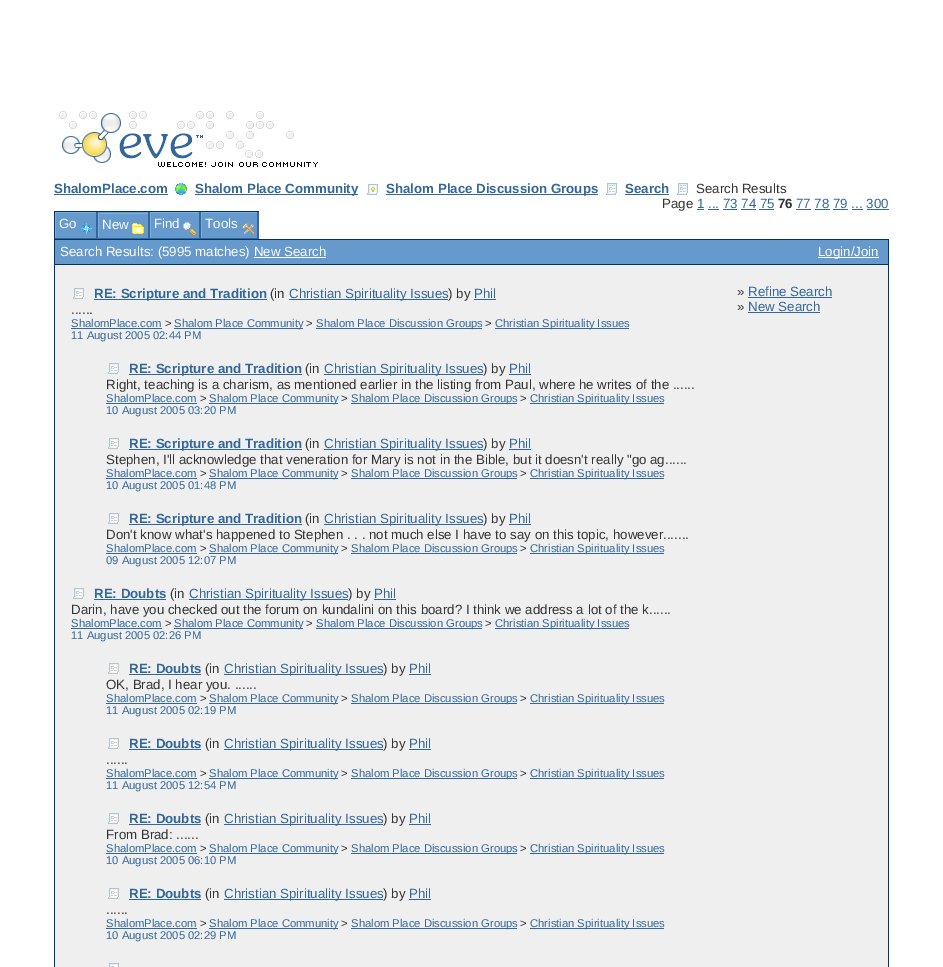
%!PS
<< /PageSize [943 967] >> setpagedevice
/rgb { dup -16 bitshift 255 div exch dup -8 bitshift 255 and 255 div exch 255 and 255 div setrgbcolor } def
/font { [ exch dup neg 0 0 3 -1 roll 0 0 ] selectfont } def
/text { moveto show } def
/picture { 5 dict begin { /h /w /y /x /name } { exch def } forall
  gsave x y translate w h scale
  w h 8 [w 0 0 h 0 0] name (r) file false 3 colorimage grestore end } def
0 967 translate 1 -1 scale
4 setmiterlimit
/s1 { /LiberationSans-Bold 13.3 font 16#336699 rgb } def
/s2 { /LiberationSans-Regular 13.3 font 16#333333 rgb } def
/s3 { /LiberationSans-Regular 13.3 font 16#336699 rgb } def
/s4 { /LiberationSans-Bold 13.3 font 16#333333 rgb } def
/s5 { /LiberationSans-Regular 13.3 font 16#FFFFFF rgb } def
/s6 { /LiberationSans-Regular 11.25 font 16#336699 rgb } def
/s7 { /LiberationSans-Regular 11.25 font 16#333333 rgb } def
16#FFFFFF rgb
0 0 943 967 rectfill
(pic1.raw) 59 111 259 56 picture
s1
(ShalomPlace.com) 54 193 text
54 194 114 1 rectfill
(pic2.raw) 175 183 12 12 picture
195 194 163 1 rectfill
(Shalom Place Community) 195 193 text
(pic3.raw) 367 184 11 11 picture
386 194 212 1 rectfill
(Shalom Place Discussion Groups) 386 193 text
(pic4.raw) 606 183 11 12 picture
(Search) 625 193 text
625 194 44 1 rectfill
(pic4.raw) 677 183 11 12 picture
s2
(Search Results) 696 193 text
(Page) 662 208 text
s3
(1 ... 73 74 75) 697 208 text
697 209 7 1 rectfill
s4
(76) 778 208 text
s3
(77 78 79 ... 300) 796 208 text
796 209 15 1 rectfill
708 209 11 1 rectfill
723 209 14 1 rectfill
741 209 15 1 rectfill
759 209 15 1 rectfill
815 209 15 1 rectfill
833 209 15 1 rectfill
852 209 11 1 rectfill
867 209 22 1 rectfill
16#003366 rgb
54 211 205 1 rectfill
54 211 1 53 rectfill
16#6699CC rgb
56 213 40 25 rectfill
16#34679A rgb
96 212 2 27 rectfill
55 238 43 1 rectfill
16#7AADE0 rgb
55 212 41 1 rectfill
55 212 1 26 rectfill
s5
(Go) 59 228 text
(pic5.raw) 81 223 11 11 picture
16#6699CC rgb
98 212 50 26 rectfill
16#34679A rgb
148 212 2 27 rectfill
98 238 52 1 rectfill
16#7AADE0 rgb
98 213 50 1 rectfill
98 213 1 24 rectfill
s5
(New) 102 229 text
(pic6.raw) 132 223 12 11 picture
16#6699CC rgb
151 213 48 25 rectfill
16#34679A rgb
199 212 2 27 rectfill
150 238 51 1 rectfill
16#7AADE0 rgb
150 212 49 1 rectfill
150 212 1 26 rectfill
s5
(Find) 154 228 text
(pic7.raw) 183 222 13 13 picture
16#6699CC rgb
202 213 55 25 rectfill
16#34679A rgb
257 212 2 27 rectfill
201 238 58 1 rectfill
16#7AADE0 rgb
201 212 56 1 rectfill
201 212 1 26 rectfill
s5
(Tools) 205 228 text
(pic8.raw) 242 223 12 11 picture
16#6699CC rgb
55 240 833 24 rectfill
16#003366 rgb
55 239 834 1 rectfill
s5
(Search Results: \(5995 matches\) New Search) 60 256 text
254 257 72 1 rectfill
818 257 61 1 rectfill
(Login/Join) 818 256 text
16#003366 rgb
888 239 1 25 rectfill
16#EFEFEF rgb
55 265 833 702 rectfill
16#003366 rgb
54 264 835 1 rectfill
888 264 1 703 rectfill
54 264 1 703 rectfill
(pic9.raw) 73 288 11 11 picture
16#336699 rgb
94 299 173 1 rectfill
s1
(RE: Scripture and Tradition) 94 298 text
s2
(\(in) 270 298 text
16#336699 rgb
289 299 159 1 rectfill
(Christian Spirituality Issues) 289 298 text
s2
(\) by) 448 298 text
s3
(Phil) 474 298 text
474 299 22 1 rectfill
s2
(......) 71 314 text
s6
(ShalomPlace.com) 71 327 text
71 328 91 1 rectfill
s7
(>) 165 327 text
16#336699 rgb
174 328 129 1 rectfill
(Shalom Place Community) 174 327 text
s7
(>) 306 327 text
16#336699 rgb
316 328 166 1 rectfill
(Shalom Place Discussion Groups) 316 327 text
s7
(>) 485 327 text
16#336699 rgb
495 328 134 1 rectfill
(Christian Spirituality Issues) 495 327 text
(11 August 2005 02:44 PM) 71 339 text
(pic9.raw) 108 363 11 11 picture
129 374 173 1 rectfill
s1
(RE: Scripture and Tradition) 129 373 text
s2
(\(in) 305 373 text
16#336699 rgb
324 374 159 1 rectfill
(Christian Spirituality Issues) 324 373 text
s2
(\) by) 483 373 text
s3
(Phil) 509 373 text
509 374 22 1 rectfill
s2
(Right, teaching is a charism, as mentioned earlier in the listing from Paul, where he writes of the ......) 106 389 text
s6
(ShalomPlace.com) 106 402 text
106 403 91 1 rectfill
s7
(>) 200 402 text
16#336699 rgb
209 403 129 1 rectfill
(Shalom Place Community) 209 402 text
s7
(>) 341 402 text
16#336699 rgb
351 403 166 1 rectfill
(Shalom Place Discussion Groups) 351 402 text
s7
(>) 520 402 text
16#336699 rgb
530 403 134 1 rectfill
(Christian Spirituality Issues) 530 402 text
(10 August 2005 03:20 PM) 106 414 text
(pic9.raw) 108 438 11 11 picture
129 449 173 1 rectfill
s1
(RE: Scripture and Tradition) 129 448 text
s2
(\(in) 305 448 text
16#336699 rgb
324 449 159 1 rectfill
(Christian Spirituality Issues) 324 448 text
s2
(\) by) 483 448 text
s3
(Phil) 509 448 text
509 449 22 1 rectfill
s2
(Stephen, I'll acknowledge that veneration for Mary is not in the Bible, but it doesn't really "go ag......) 106 464 text
s6
(ShalomPlace.com) 106 477 text
106 478 91 1 rectfill
s7
(>) 200 477 text
16#336699 rgb
209 478 129 1 rectfill
(Shalom Place Community) 209 477 text
s7
(>) 341 477 text
16#336699 rgb
351 478 166 1 rectfill
(Shalom Place Discussion Groups) 351 477 text
s7
(>) 520 477 text
16#336699 rgb
530 478 134 1 rectfill
(Christian Spirituality Issues) 530 477 text
(10 August 2005 01:48 PM) 106 489 text
(pic9.raw) 108 513 11 11 picture
129 524 173 1 rectfill
s1
(RE: Scripture and Tradition) 129 523 text
s2
(\(in) 305 523 text
16#336699 rgb
324 524 159 1 rectfill
(Christian Spirituality Issues) 324 523 text
s2
(\) by) 483 523 text
s3
(Phil) 509 523 text
509 524 22 1 rectfill
s2
(Don't know what's happened to Stephen . . . not much else I have to say on this topic, however.......) 106 539 text
s6
(ShalomPlace.com) 106 552 text
106 553 91 1 rectfill
s7
(>) 200 552 text
16#336699 rgb
209 553 129 1 rectfill
(Shalom Place Community) 209 552 text
s7
(>) 341 552 text
16#336699 rgb
351 553 166 1 rectfill
(Shalom Place Discussion Groups) 351 552 text
s7
(>) 520 552 text
16#336699 rgb
530 553 134 1 rectfill
(Christian Spirituality Issues) 530 552 text
(09 August 2005 12:07 PM) 106 564 text
(pic9.raw) 73 588 11 11 picture
s1
(RE: Doubts) 94 598 text
94 599 72 1 rectfill
s2
(\(in) 170 598 text
16#336699 rgb
189 599 159 1 rectfill
(Christian Spirituality Issues) 189 598 text
s2
(\) by) 348 598 text
s3
(Phil) 374 598 text
374 599 22 1 rectfill
s2
(Darin, have you checked out the forum on kundalini on this board? I think we address a lot of the k......) 71 614 text
s6
(ShalomPlace.com) 71 627 text
71 628 91 1 rectfill
s7
(>) 165 627 text
16#336699 rgb
174 628 129 1 rectfill
(Shalom Place Community) 174 627 text
s7
(>) 306 627 text
16#336699 rgb
316 628 166 1 rectfill
(Shalom Place Discussion Groups) 316 627 text
s7
(>) 485 627 text
16#336699 rgb
495 628 134 1 rectfill
(Christian Spirituality Issues) 495 627 text
(11 August 2005 02:26 PM) 71 639 text
(pic9.raw) 108 663 11 11 picture
s1
(RE: Doubts) 129 673 text
129 674 72 1 rectfill
s2
(\(in) 205 673 text
16#336699 rgb
224 674 159 1 rectfill
(Christian Spirituality Issues) 224 673 text
s2
(\) by) 383 673 text
s3
(Phil) 409 673 text
409 674 22 1 rectfill
s2
(OK, Brad, I hear you. ......) 106 689 text
s6
(ShalomPlace.com) 106 702 text
106 703 91 1 rectfill
s7
(>) 200 702 text
16#336699 rgb
209 703 129 1 rectfill
(Shalom Place Community) 209 702 text
s7
(>) 341 702 text
16#336699 rgb
351 703 166 1 rectfill
(Shalom Place Discussion Groups) 351 702 text
s7
(>) 520 702 text
16#336699 rgb
530 703 134 1 rectfill
(Christian Spirituality Issues) 530 702 text
(11 August 2005 02:19 PM) 106 714 text
(pic9.raw) 108 738 11 11 picture
s1
(RE: Doubts) 129 748 text
129 749 72 1 rectfill
s2
(\(in) 205 748 text
16#336699 rgb
224 749 159 1 rectfill
(Christian Spirituality Issues) 224 748 text
s2
(\) by) 383 748 text
s3
(Phil) 409 748 text
409 749 22 1 rectfill
s2
(......) 106 764 text
s6
(ShalomPlace.com) 106 777 text
106 778 91 1 rectfill
s7
(>) 200 777 text
16#336699 rgb
209 778 129 1 rectfill
(Shalom Place Community) 209 777 text
s7
(>) 341 777 text
16#336699 rgb
351 778 166 1 rectfill
(Shalom Place Discussion Groups) 351 777 text
s7
(>) 520 777 text
16#336699 rgb
530 778 134 1 rectfill
(Christian Spirituality Issues) 530 777 text
(11 August 2005 12:54 PM) 106 789 text
(pic9.raw) 108 813 11 11 picture
s1
(RE: Doubts) 129 823 text
129 824 72 1 rectfill
s2
(\(in) 205 823 text
16#336699 rgb
224 824 159 1 rectfill
(Christian Spirituality Issues) 224 823 text
s2
(\) by) 383 823 text
s3
(Phil) 409 823 text
409 824 22 1 rectfill
s2
(From Brad: ......) 106 839 text
s6
(ShalomPlace.com) 106 852 text
106 853 91 1 rectfill
s7
(>) 200 852 text
16#336699 rgb
209 853 129 1 rectfill
(Shalom Place Community) 209 852 text
s7
(>) 341 852 text
16#336699 rgb
351 853 166 1 rectfill
(Shalom Place Discussion Groups) 351 852 text
s7
(>) 520 852 text
16#336699 rgb
530 853 134 1 rectfill
(Christian Spirituality Issues) 530 852 text
(10 August 2005 06:10 PM) 106 864 text
(pic9.raw) 108 888 11 11 picture
s1
(RE: Doubts) 129 898 text
129 899 72 1 rectfill
s2
(\(in) 205 898 text
16#336699 rgb
224 899 159 1 rectfill
(Christian Spirituality Issues) 224 898 text
s2
(\) by) 383 898 text
s3
(Phil) 409 898 text
409 899 22 1 rectfill
s2
(......) 106 914 text
s6
(ShalomPlace.com) 106 927 text
106 928 91 1 rectfill
s7
(>) 200 927 text
16#336699 rgb
209 928 129 1 rectfill
(Shalom Place Community) 209 927 text
s7
(>) 341 927 text
16#336699 rgb
351 928 166 1 rectfill
(Shalom Place Discussion Groups) 351 927 text
s7
(>) 520 927 text
16#336699 rgb
530 928 134 1 rectfill
(Christian Spirituality Issues) 530 927 text
(10 August 2005 02:29 PM) 106 939 text
(pic10.raw) 109 963 10 4 picture
s2
(») 737 296 text
s3
(Refine Search) 748 296 text
748 297 84 1 rectfill
s2
(») 737 311 text
s3
(New Search) 748 311 text
748 312 72 1 rectfill
showpage
